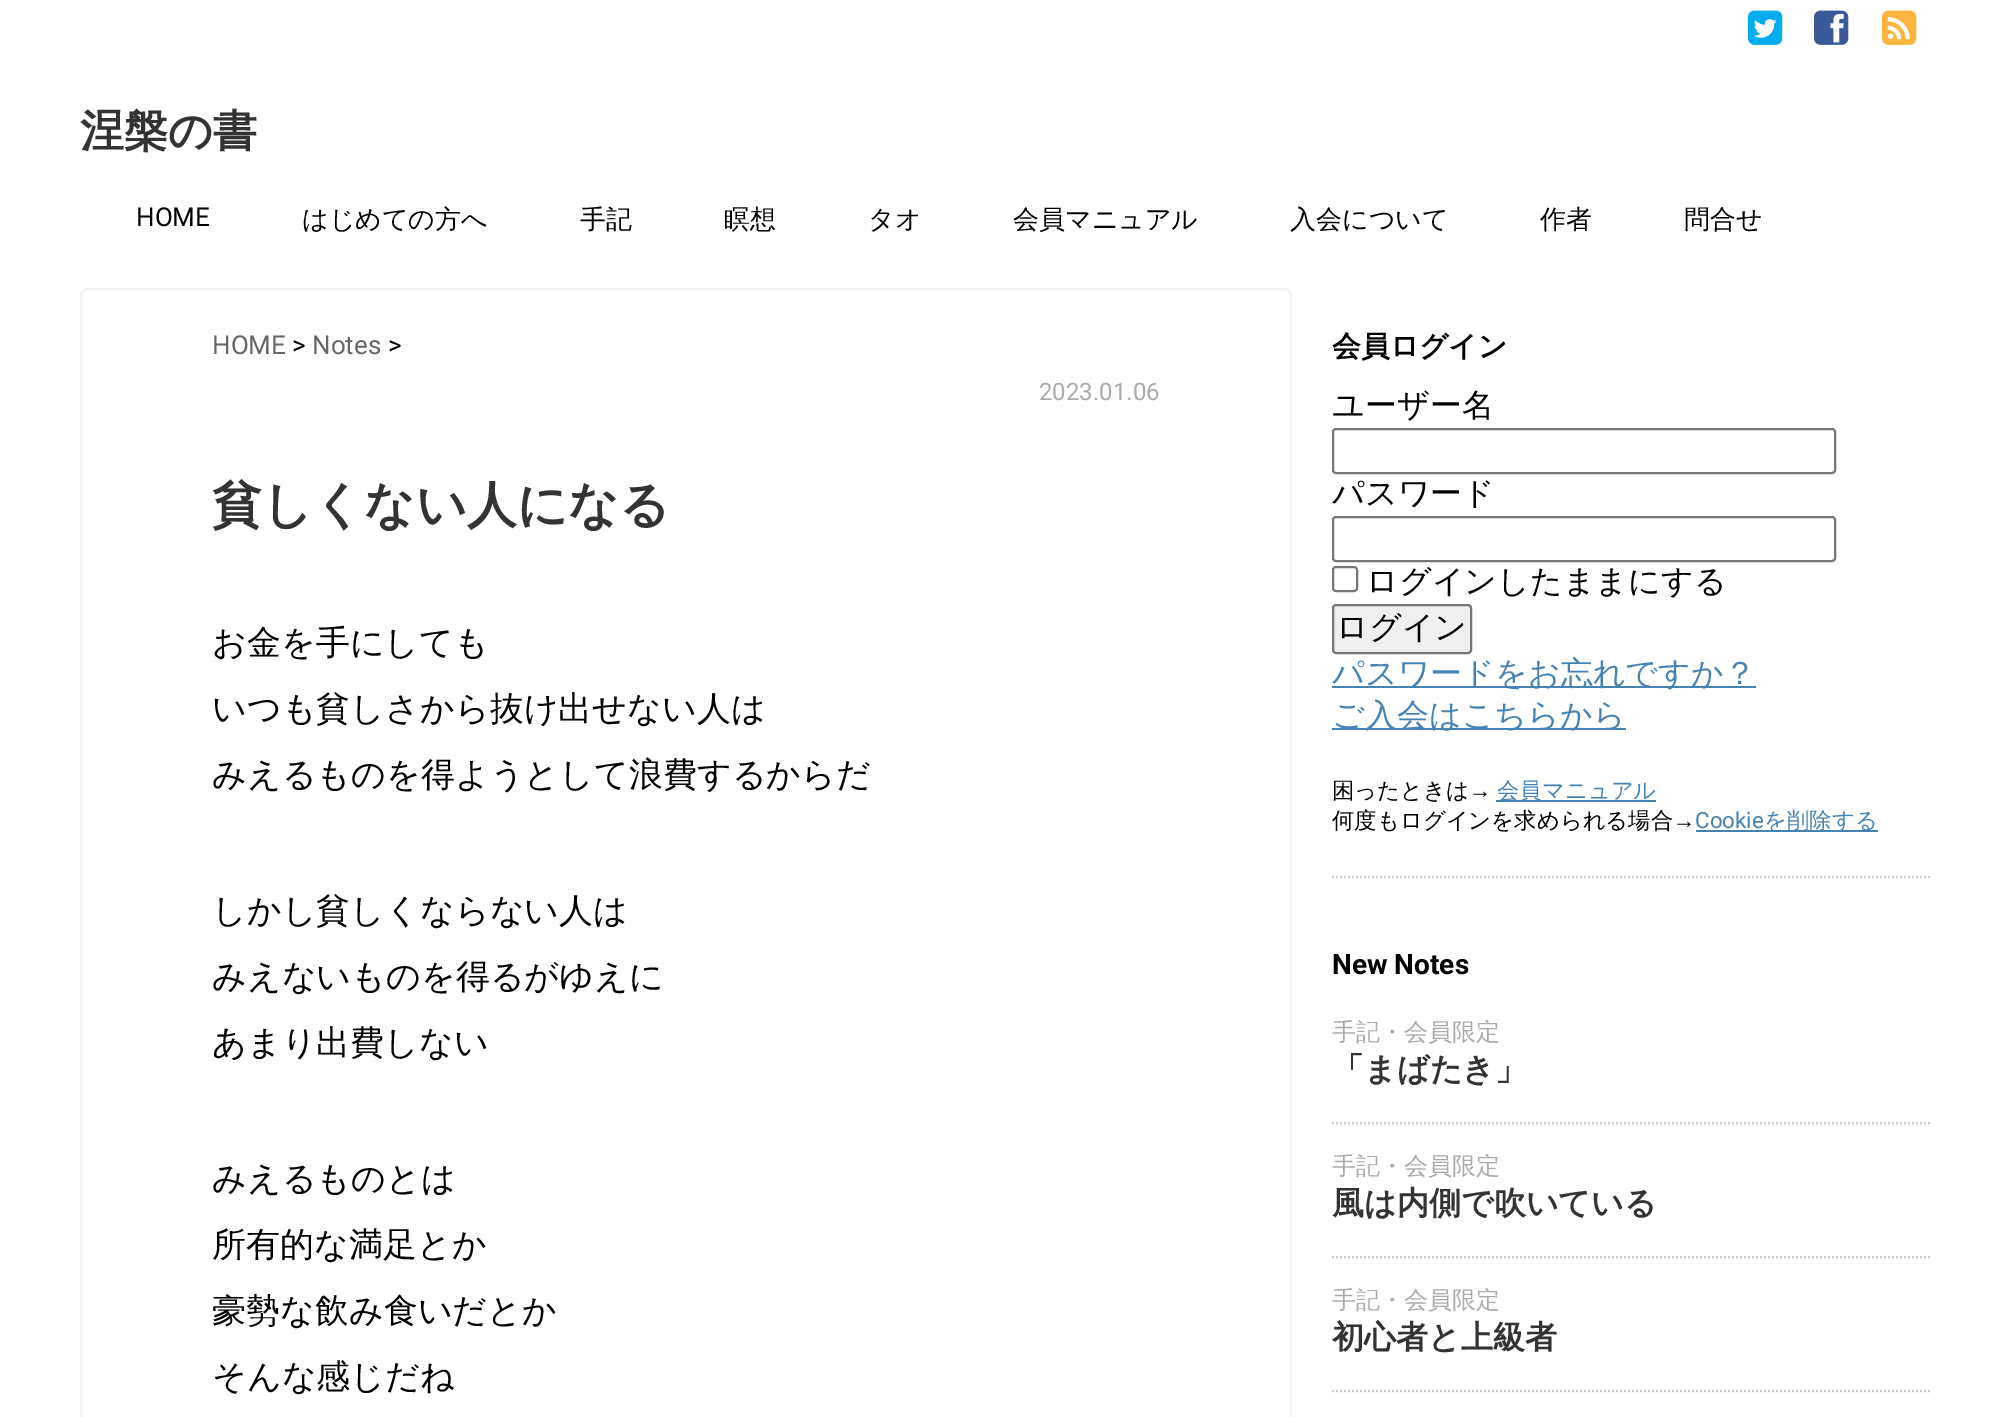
%!PS
<< /PageSize [2011 1417] >> setpagedevice
/rgb { dup -16 bitshift 255 div exch dup -8 bitshift 255 and 255 div exch 255 and 255 div setrgbcolor } def
/font { [ exch dup neg 0 0 3 -1 roll 0 0 ] selectfont } def
/text { moveto show } def
/roundrect { 5 dict begin { /r /h /w /y /x } { exch def } forall
  x r add y moveto x w add y 2 copy h add r arct x w add y h add x 1 index r arct
  x y h add x y r arct x y 2 copy exch w add exch r arct closepath end } def
/picture { 5 dict begin { /h /w /y /x /name } { exch def } forall
  gsave x y translate w h scale
  w h 8 [w 0 0 h 0 0] name (r) file false 3 colorimage grestore end } def
0 1417 translate 1 -1 scale
4 setmiterlimit
/s1 { /WenQuanYiZenHei-Bold 44 font 16#333333 rgb } def
/s2 { /Roboto-Regular 26 font 16#000000 rgb } def
/s3 { /WenQuanYiZenHei-Medium 26 font 16#000000 rgb } def
/s4 { /Roboto-Regular 26 font 16#666666 rgb } def
/s5 { /Roboto-Regular 24 font 16#AAAAAA rgb } def
/s6 { /WenQuanYiZenHei-Bold 50 font 16#333333 rgb } def
/s7 { /WenQuanYiZenHei-Medium 34 font 16#000000 rgb } def
/s8 { /WenQuanYiZenHei-Bold 28.75 font 16#000000 rgb } def
/s9 { /WenQuanYiZenHei-Medium 32 font 16#000000 rgb } def
/s10 { /WenQuanYiZenHei-Medium 32 font 16#4682B4 rgb } def
/s11 { /WenQuanYiZenHei-Medium 22.4 font 16#000000 rgb } def
/s12 { /LiberationSans-Regular 22.4 font 16#000000 rgb } def
/s13 { /WenQuanYiZenHei-Medium 22.4 font 16#4682B4 rgb } def
/s14 { /Roboto-Regular 22.4 font 16#4682B4 rgb } def
/s15 { /Roboto-Bold 28 font 16#000000 rgb } def
/s16 { /WenQuanYiZenHei-Medium 24 font 16#AAAAAA rgb } def
/s17 { /WenQuanYiZenHei-Bold 32 font 16#333333 rgb } def
16#FFFFFF rgb
0 0 2011 1417 rectfill
(pic1.raw) 1748 10 35 35 picture
(pic2.raw) 1814 10 35 35 picture
(pic3.raw) 1882 10 35 35 picture
s1
(涅槃の書) 80 146 text
s2
(HOME) 136 226 text
s3
(はじめての方へ) 302 228 text
(手記) 580 228 text
(瞑想) 724 228 text
(タオ) 868 228 text
(会員マニュアル) 1013 228 text
(入会について) 1290 228 text
(作者) 1540 228 text
(問合せ) 1684 228 text
16#F2F2F2 rgb
2 setlinewidth
81 289 1210 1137 7 roundrect stroke
s4
(HOME) 212 354 text
s2
(>) 292 354 text
s4
(Notes) 312 354 text
s2
(>) 388 354 text
s5
(2023.01.06) 1039 400 text
s6
(貧しくない人になる) 212 522 text
s7
(お金を手にしても) 212 654 text
(いつも貧しさから抜け出せない人は) 212 720 text
(みえるものを得ようとして浪費するからだ) 212 786 text
(しかし貧しくならない人は) 212 922 text
(みえないものを得るがゆえに) 212 988 text
(あまり出費しない) 212 1054 text
(みえるものとは) 212 1190 text
(所有的な満足とか) 212 1256 text
(豪勢な飲み食いだとか) 212 1322 text
(そんな感じだね) 212 1388 text
s8
(会員ログイン) 1332 356 text
s9
(ユーザー名) 1332 416 text
16#767676 rgb
1333 429 502 44 3 roundrect stroke
s9
(パスワード) 1332 504 text
16#767676 rgb
1333 517 502 44 3 roundrect stroke
1333 567 24 24 3 roundrect stroke
s9
(ログインしたままにする) 1366 592 text
16#EFEFEF rgb
1333 605 138 48 3 roundrect gsave fill grestore
16#767676 rgb
stroke
s9
(ログイン) 1336 638 text
16#4682B4 rgb
1332 686 424 2 rectfill
(パスワードをお忘れですか？) 1332 684 text
1332 728 294 2 rectfill
(ご入会はこちらから) 1332 726 text
s11
(困ったときは) 1332 798 text
s12
(→) 1469 798 text
16#4682B4 rgb
1496 800 160 2 rectfill
s13
(会員マニュアル) 1497 798 text
s11
(何度もログインを求められる場合) 1332 828 text
s12
(→) 1673 828 text
s14
(Cookie) 1695 828 text
1696 830 182 2 rectfill
s13
(を削除する) 1764 828 text
16#CCCCCC rgb
[2 2] 0 setdash
1332 877 moveto 1932 877 lineto stroke
s15
(New Notes) 1332 974 text
16#CCCCCC rgb
1332 1123 moveto 1932 1123 lineto stroke
s16
(手記・会員限定) 1332 1040 text
s17
(「まばたき」) 1332 1080 text
16#CCCCCC rgb
1332 1257 moveto 1932 1257 lineto stroke
s16
(手記・会員限定) 1332 1174 text
s17
(風は内側で吹いている) 1332 1214 text
16#CCCCCC rgb
1332 1391 moveto 1932 1391 lineto stroke
s16
(手記・会員限定) 1332 1308 text
s17
(初心者と上級者) 1332 1348 text
showpage
